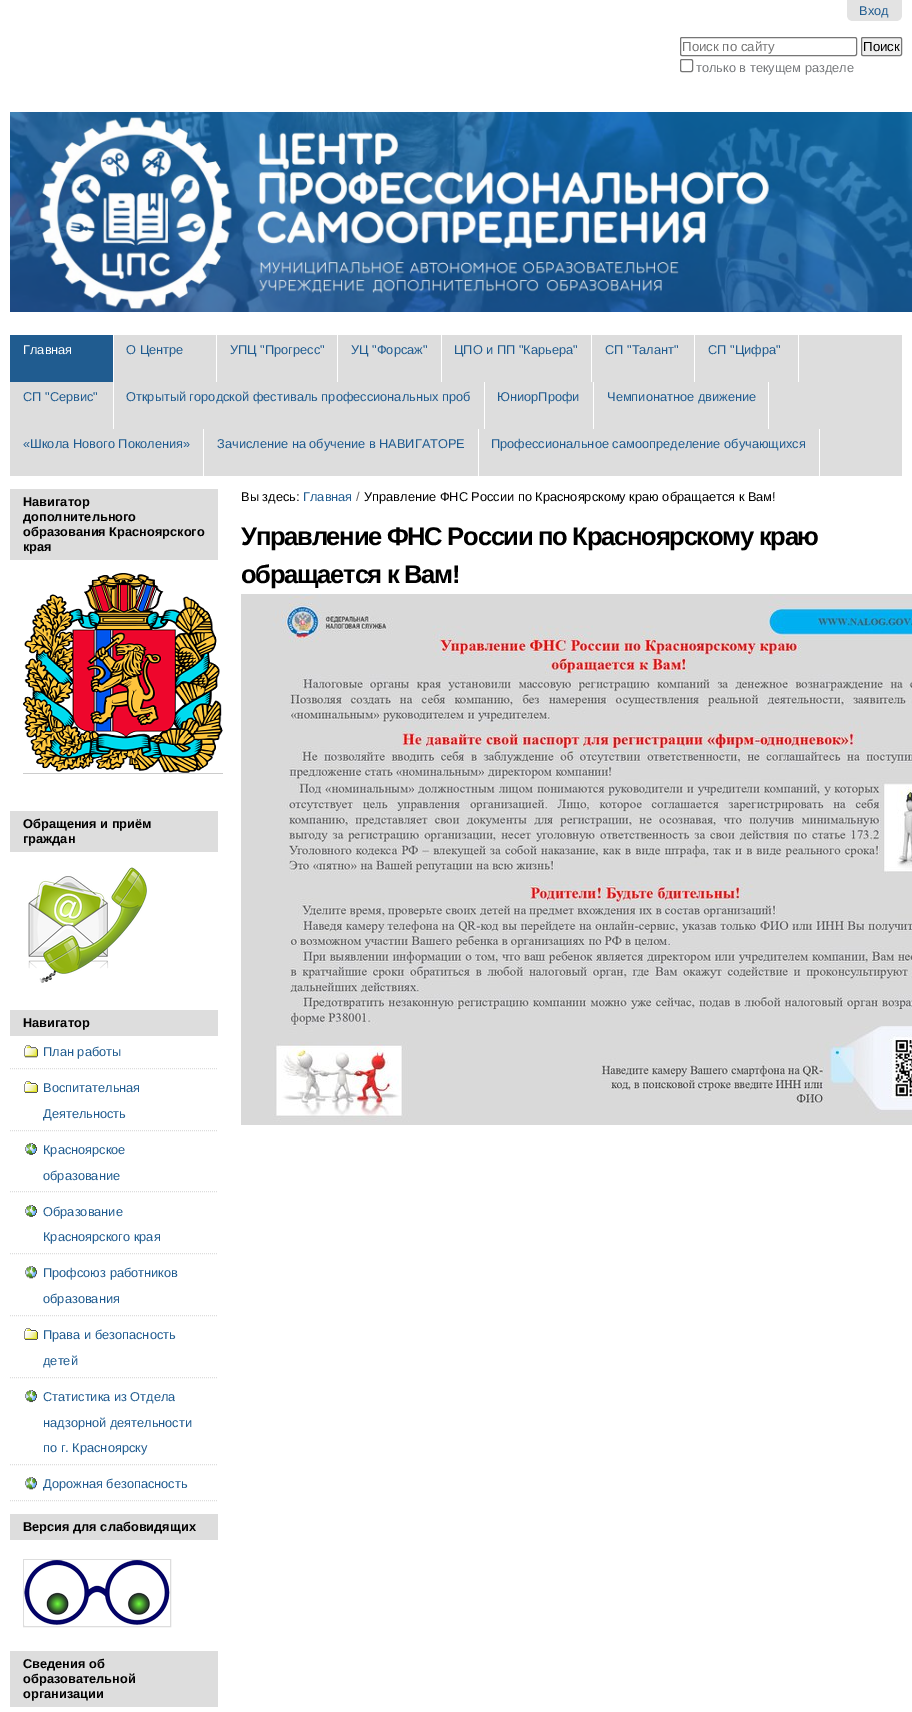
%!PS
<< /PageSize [912 1712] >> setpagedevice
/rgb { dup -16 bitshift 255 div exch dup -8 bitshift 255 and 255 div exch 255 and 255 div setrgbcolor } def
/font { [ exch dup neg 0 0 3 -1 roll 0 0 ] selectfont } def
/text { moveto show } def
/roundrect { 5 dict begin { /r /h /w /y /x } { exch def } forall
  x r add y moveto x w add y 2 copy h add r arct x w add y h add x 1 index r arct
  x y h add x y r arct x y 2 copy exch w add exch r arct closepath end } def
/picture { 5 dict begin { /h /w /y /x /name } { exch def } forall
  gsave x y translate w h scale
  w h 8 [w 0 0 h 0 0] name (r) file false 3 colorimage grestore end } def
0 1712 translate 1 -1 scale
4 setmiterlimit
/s1 { /LiberationSans-Regular 12.8 font 16#205C90 rgb } def
/s2 { /LiberationSans-Regular 13.25 font 16#757575 rgb } def
/s3 { /LiberationSans-Regular 13.25 font 16#000000 rgb } def
/s4 { /LiberationSans-Regular 12.8 font 16#76797C rgb } def
/s5 { /LiberationSans-Regular 12.8 font 16#FFFFFF rgb } def
/s6 { /LiberationSans-Bold 12.8 font 16#000000 rgb } def
/s7 { /LiberationSans-Regular 12.8 font 16#000000 rgb } def
/s8 { /LiberationSans-Regular 12.8 font 16#666666 rgb } def
16#FFFFFF rgb
0 0 912 1712 rectfill
16#E3E3E3 rgb
847 0 moveto 902 0 lineto 902 15 lineto 902 18.5 899.5 21 896 21 curveto 853 21 lineto 849.5 21 847 18.5 847 15 curveto closepath fill
s1
(Вход) 859 15 text
16#767676 rgb
680.5 37.5 176 18 1.5 roundrect stroke
s2
(Поиск по сайту) 682 51 text
16#EFEFEF rgb
861.5 37.5 40 18 1.5 roundrect gsave fill grestore
16#767676 rgb
stroke
s3
(Поиск) 863 51 text
16#767676 rgb
680.5 59.5 12 12 1.5 roundrect stroke
s4
(только в текущем разделе) 696 72 text
(pic1.raw) 10 112 902 200 picture
16#DDDDDD rgb
10 335 892 141 rectfill
16#205C90 rgb
10 335 103 47 rectfill
16#FFFFFF rgb
113 335 1 94 rectfill
(Главная) 23 354 text
216 335 1 47 rectfill
s1
(О Центре) 126 354 text
16#FFFFFF rgb
337 335 1 47 rectfill
s1
(УПЦ "Прогресс") 230 354 text
16#FFFFFF rgb
441 335 1 47 rectfill
s1
(УЦ "Форсаж") 351 354 text
16#FFFFFF rgb
591 335 1 47 rectfill
s1
(ЦПО и ПП "Карьера") 454 354 text
16#FFFFFF rgb
694 335 1 47 rectfill
s1
(СП "Талант") 605 354 text
16#FFFFFF rgb
798 335 1 47 rectfill
s1
(СП "Цифра") 708 354 text
(СП "Сервис") 23 401 text
16#FFFFFF rgb
484 382 1 47 rectfill
s1
(Открытый городской фестиваль профессиональных проб) 126 401 text
16#FFFFFF rgb
593 382 1 47 rectfill
s1
(ЮниорПрофи) 497 401 text
16#FFFFFF rgb
768 382 1 47 rectfill
s1
(Чемпионатное движение) 607 401 text
16#FFFFFF rgb
203 429 1 47 rectfill
s1
(«Школа Нового Поколения») 23 448 text
16#FFFFFF rgb
478 429 1 47 rectfill
s1
(Зачисление на обучение в НАВИГАТОРЕ) 217 448 text
16#FFFFFF rgb
819 429 1 47 rectfill
s1
(Профессиональное самоопределение обучающихся) 491 448 text
16#DDDDDD rgb
10 489 208 71 rectfill
s6
(Навигатор) 23 506 text
(дополнительного) 23 521 text
(образования Красноярского) 23 536 text
(края) 23 551 text
(pic2.raw) 23 573 200 200 picture
16#CCCCCC rgb
23 773 200 1 rectfill
16#DDDDDD rgb
10 811 208 41 rectfill
s6
(Обращения и приём) 23 828 text
(граждан) 23 843 text
(pic3.raw) 28 867 119 116 picture
16#DDDDDD rgb
10 1010 208 26 rectfill
s6
(Навигатор) 23 1027 text
16#DDDDDD rgb
[1 1] 0 setdash
10 1068.5 moveto 218 1068.5 lineto stroke
(pic4.raw) 24 1045 14 13 picture
s1
(План работы) 43 1056 text
16#DDDDDD rgb
10 1130.5 moveto 218 1130.5 lineto stroke
(pic5.raw) 24 1081 14 12 picture
s1
(Воспитательная) 43 1092 text
(Деятельность) 43 1118 text
16#DDDDDD rgb
10 1191.5 moveto 218 1191.5 lineto stroke
(pic6.raw) 25 1143 12 12 picture
s1
(Красноярское) 43 1154 text
(образование) 43 1180 text
16#DDDDDD rgb
10 1253.5 moveto 218 1253.5 lineto stroke
(pic6.raw) 25 1205 12 12 picture
s1
(Образование) 43 1216 text
(Красноярского края) 43 1241 text
16#DDDDDD rgb
10 1315.5 moveto 218 1315.5 lineto stroke
(pic7.raw) 25 1266 12 13 picture
s1
(Профсоюз работников) 43 1277 text
(образования) 43 1303 text
16#DDDDDD rgb
10 1377.5 moveto 218 1377.5 lineto stroke
(pic5.raw) 24 1328 14 12 picture
s1
(Права и безопасность) 43 1339 text
(детей) 43 1365 text
16#DDDDDD rgb
10 1464.5 moveto 218 1464.5 lineto stroke
(pic8.raw) 25 1390 12 13 picture
s1
(Статистика из Отдела) 43 1401 text
(надзорной деятельности) 43 1427 text
(по г. Красноярску) 43 1452 text
16#DDDDDD rgb
10 1500.5 moveto 218 1500.5 lineto stroke
(pic7.raw) 25 1477 12 13 picture
s1
(Дорожная безопасность) 43 1488 text
16#DDDDDD rgb
10 1514 208 26 rectfill
s6
(Версия для слабовидящих) 23 1531 text
16#DDDDDD rgb
[] 0 setdash
23.5 1559.5 147 67 rectstroke
(pic9.raw) 24 1560 146 65 picture
10 1651 208 56 rectfill
s6
(Сведения об) 23 1668 text
(образовательной) 23 1683 text
(организации) 23 1698 text
s7
(Вы здесь:) 241 501 text
s1
(Главная) 303 501 text
s8
(/) 356 501 text
s7
(Управление ФНС России по Красноярскому краю обращается к Вам!) 364 501 text
/LiberationSans-Bold 25.6 font
241 545 moveto -1.3 0 (Управление ФНС России по Красноярскому краю) ashow
241 583 moveto -1.3 0 (обращается к Вам!) ashow
(pic10.raw) 241 594 671 531 picture
showpage
